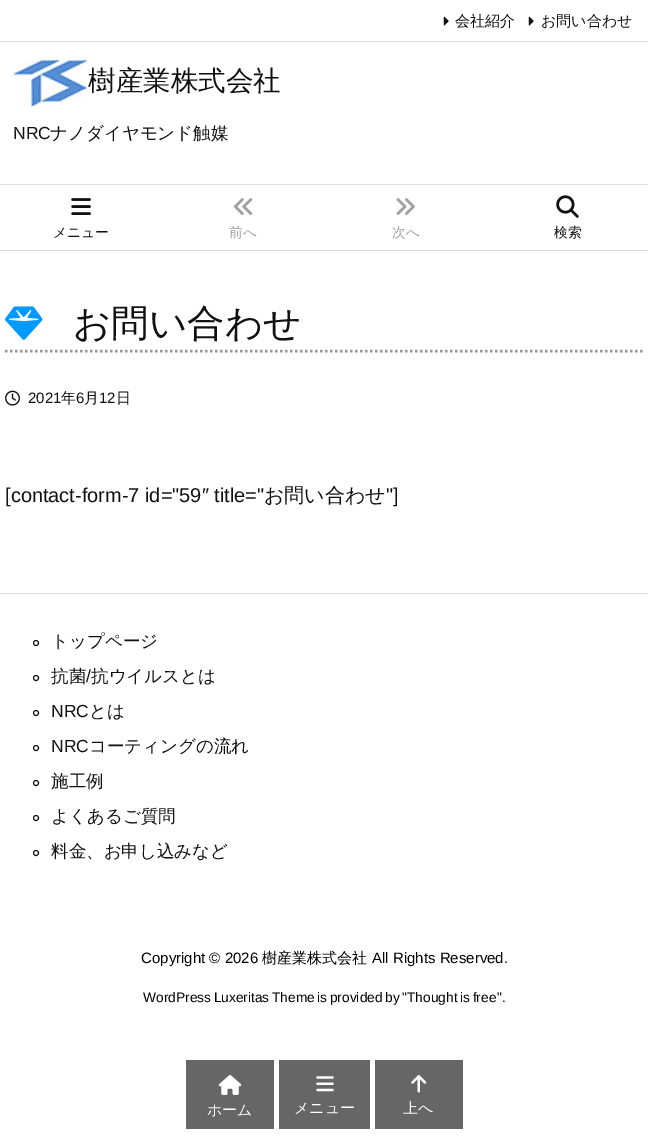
%!PS
<< /PageSize [648 1146] >> setpagedevice
/rgb { dup -16 bitshift 255 div exch dup -8 bitshift 255 and 255 div exch 255 and 255 div setrgbcolor } def
/font { [ exch dup neg 0 0 3 -1 roll 0 0 ] selectfont } def
/text { moveto show } def
/circle { newpath 0 360 arc closepath } def
/picture { 5 dict begin { /h /w /y /x /name } { exch def } forall
  gsave x y translate w h scale
  w h 8 [w 0 0 h 0 0] name (r) file false 3 colorimage grestore end } def
0 1146 translate 1 -1 scale
4 setmiterlimit
/s1 { /WenQuanYiZenHei-Medium 15 font 16#111111 rgb } def
/s2 { /WenQuanYiZenHei-Medium 13.75 font 16#111111 rgb } def
/s3 { /WenQuanYiZenHei-Medium 13.75 font 16#A0A0A0 rgb } def
/s4 { /WenQuanYiZenHei-Medium 27.5 font 16#111111 rgb } def
/s5 { /LiberationSans-Regular 17.5 font 16#111111 rgb } def
/s6 { /WenQuanYiZenHei-Medium 17.5 font 16#111111 rgb } def
/s7 { /WenQuanYiZenHei-Medium 37.5 font 16#111111 rgb } def
/s8 { /LiberationSans-Regular 15 font 16#111111 rgb } def
/s9 { /LiberationSans-Regular 20 font 16#111111 rgb } def
/s10 { /WenQuanYiZenHei-Medium 20 font 16#111111 rgb } def
/s11 { /LiberationSans-Regular 15 font 16#000000 rgb } def
/s12 { /WenQuanYiZenHei-Medium 15 font 16#000000 rgb } def
/s13 { /LiberationSans-Regular 13.75 font 16#000000 rgb } def
/s14 { /WenQuanYiZenHei-Medium 15 font 16#FFFFFF rgb } def
16#FFFFFF rgb
0 0 648 1146 rectfill
16#DDDDDD rgb
0 41 648 1 rectfill
(pic1.raw) 443 16 6 10 picture
s1
(会社紹介) 455 26 text
(pic1.raw) 528 16 6 10 picture
(お問い合わせ) 541 26 text
16#DDDDDD rgb
0 184 648 1 rectfill
0 250 648 1 rectfill
(pic2.raw) 71 198 20 17 picture
s2
(メニュー) 53 237 text
(pic3.raw) 234 198 19 17 picture
s3
(前へ) 229 237 text
(pic4.raw) 396 198 19 17 picture
(次へ) 392 237 text
(pic5.raw) 556 195 23 23 picture
s2
(検索) 554 237 text
(pic6.raw) 12 60 76 47 picture
s4
(樹産業株式会社) 88 90 text
s5
(NRC) 13 139 text
s6
(ナノダイヤモンド触媒) 50 139 text
16#999999 rgb
2.5 setlinewidth
[2.5 2.5] 0 setdash
5 351 moveto 644 351 lineto stroke
(pic7.raw) 5 306 38 34 picture
s7
(お問い合わせ) 73 336 text
(pic8.raw) 5 390 15 16 picture
s8
(2021) 28 403 text
s1
(年) 61 403 text
s8
(6) 76 403 text
s1
(月) 84 403 text
s8
(12) 99 403 text
s1
(日) 116 403 text
s9
([contact-form-7 id="59″ title=") 5 502 text
s10
(お問い合わせ) 264 502 text
s9
("]) 386 502 text
16#DDDDDD rgb
0 593 648 1 rectfill
16#111111 rgb
1 setlinewidth
[] 0 setdash
36 643 2.5 circle stroke
s6
(トップページ) 51 647 text
36 678 2.5 circle stroke
(抗菌) 51 682 text
s5
(/) 86 682 text
s6
(抗ウイルスとは) 91 682 text
36 713 2.5 circle stroke
s5
(NRC) 51 717 text
s6
(とは) 89 717 text
36 748 2.5 circle stroke
s5
(NRC) 51 752 text
s6
(コーティングの流れ) 89 752 text
36 783 2.5 circle stroke
(施工例) 51 787 text
36 818 2.5 circle stroke
(よくあるご質問) 51 822 text
36 853 2.5 circle stroke
(料金、お申し込みなど) 51 857 text
s11
(Copyright © 2026) 141 963 text
s12
(樹産業株式会社) 262 963 text
s11
(All Rights Reserved.) 372 963 text
/LiberationSans-Regular 13.75 font
143 1002 moveto -1.25 0 32 (WordPress Luxeritas Theme is provided by "Thought is free) widthshow
(".) 497 1002 text
16#666666 rgb
186 1060 88 69 rectfill
(pic9.raw) 218 1075 24 20 picture
s14
(ホーム) 207 1115 text
16#666666 rgb
279 1060 91 69 rectfill
(pic10.raw) 316 1076 18 16 picture
s14
(メニュー) 294 1113 text
16#666666 rgb
375 1060 88 69 rectfill
(pic11.raw) 411 1075 16 18 picture
s14
(上へ) 403 1113 text
showpage
